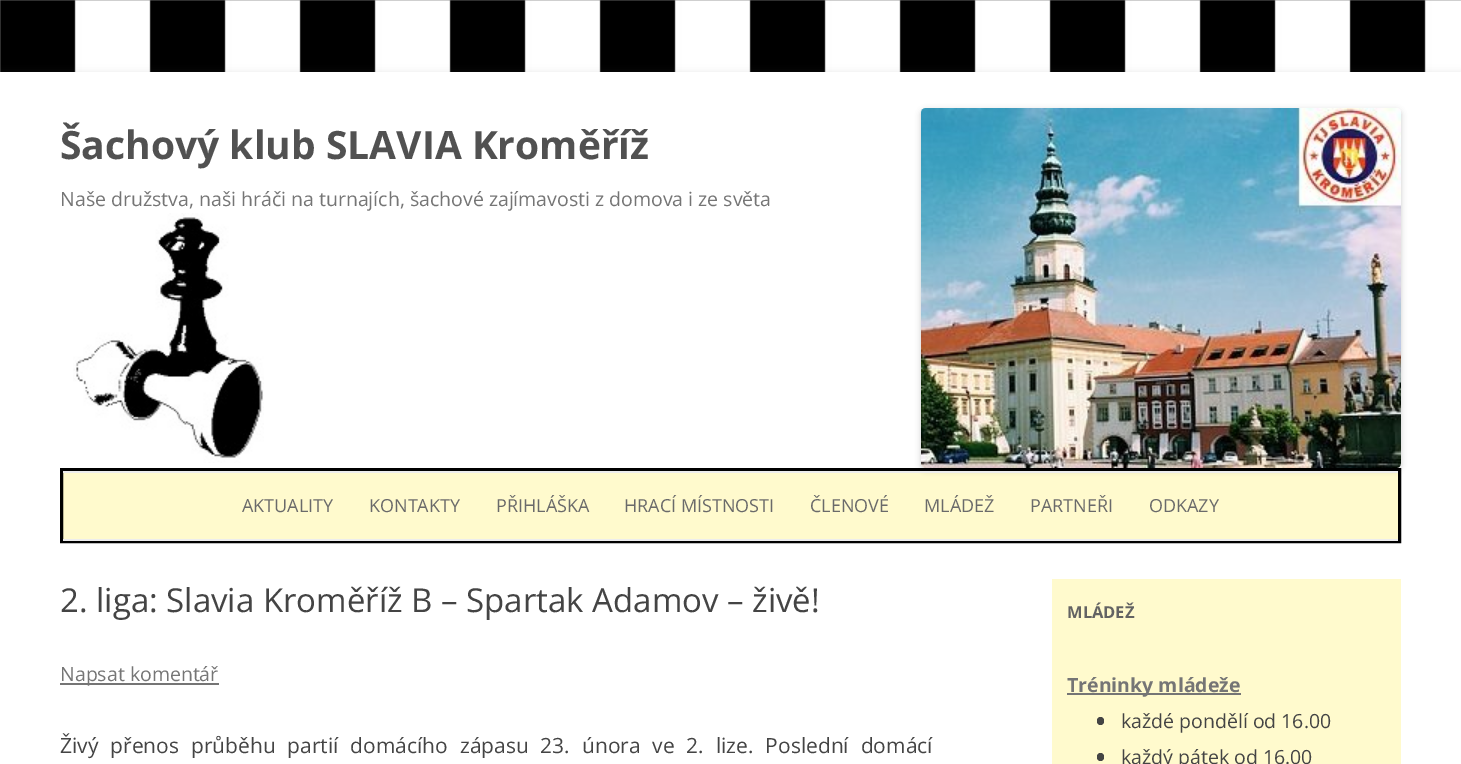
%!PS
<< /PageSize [1461 764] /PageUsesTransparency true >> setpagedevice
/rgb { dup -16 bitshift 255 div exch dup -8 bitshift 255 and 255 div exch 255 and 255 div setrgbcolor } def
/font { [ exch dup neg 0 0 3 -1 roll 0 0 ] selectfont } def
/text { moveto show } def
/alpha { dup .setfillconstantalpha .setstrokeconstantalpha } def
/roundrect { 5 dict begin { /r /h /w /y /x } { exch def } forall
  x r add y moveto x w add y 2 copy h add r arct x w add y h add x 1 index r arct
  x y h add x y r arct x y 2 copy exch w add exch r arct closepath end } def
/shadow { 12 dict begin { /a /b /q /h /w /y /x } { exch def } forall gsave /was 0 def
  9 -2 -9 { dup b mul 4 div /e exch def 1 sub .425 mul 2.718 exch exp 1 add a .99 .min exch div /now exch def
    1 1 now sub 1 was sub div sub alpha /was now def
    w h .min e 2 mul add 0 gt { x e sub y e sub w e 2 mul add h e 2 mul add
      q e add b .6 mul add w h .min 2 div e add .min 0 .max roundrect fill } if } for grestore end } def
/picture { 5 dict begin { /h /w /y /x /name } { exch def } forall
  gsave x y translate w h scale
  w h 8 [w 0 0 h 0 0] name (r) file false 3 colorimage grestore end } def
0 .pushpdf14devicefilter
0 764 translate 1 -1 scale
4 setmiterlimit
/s1 { /OpenSans-Bold 39 font 16#515151 rgb } def
/s2 { /OpenSans-Regular 19.5 font 16#757575 rgb } def
/s3 { /OpenSans-Regular 18 font 16#6A6A6A rgb } def
/s4 { /OpenSans-Regular 33 font 16#444444 rgb } def
/s5 { /OpenSans-Bold 16.5 font 16#636363 rgb } def
/s6 { /OpenSans-Bold 19.5 font 16#757575 rgb } def
/s7 { /OpenSans-Regular 19.5 font 16#444444 rgb } def
16#FFFFFF rgb
0 0 1461 764 rectfill
(pic1.raw) 0 0 1461 72 picture
16#646464 rgb
0 75 1461 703 0 4.5 0.3 shadow
16#FFFFFF rgb
0 72 1461 692 rectfill
(pic2.raw) 73 213 191 250 picture
s1
(Šachový klub SLAVIA Kroměříž) 60 159 text
s2
(Naše družstva, naši hráči na turnajích, šachové zajímavosti z domova i ze světa) 60 206 text
16#FFFACD rgb
63 473 1335 66 rectfill
16#000000 rgb
3 setlinewidth
61.5 469.5 1338 72 rectstroke
921 110 480 360 5 3 0.2 shadow
(pic3.raw) 921 108 480 360 picture
16#EDEDED rgb
63 471 1335 2 rectfill
63 539 1335 2 rectfill
s3
(AKTUALITY) 242 512 text
(KONTAKTY) 369 512 text
(PŘIHLÁŠKA) 496 512 text
(HRACÍ MÍSTNOSTI) 624 512 text
(ČLENOVÉ) 810 512 text
(MLÁDEŽ) 924 512 text
(PARTNEŘI) 1030 512 text
(ODKAZY) 1149 512 text
s4
(2. liga: Slavia Kroměříž B – Spartak Adamov – živě!) 60 612 text
16#757575 rgb
60 683 159 2 rectfill
s2
(Napsat komentář) 60 681 text
/OpenSans-Regular 21 font
16#444444 rgb
60 753 moveto 6.4 0 32 (Živý přenos průběhu partií domácího zápasu 23. února ve 2. lize. Poslední domácí) widthshow
16#FFFACD rgb
1052 579 349 185 rectfill
s5
(MLÁDEŽ) 1067 618 text
16#757575 rgb
1067 693 174 2 rectfill
s6
(Tréninky mládeže) 1067 692 text
16#444444 rgb
1097 717 7 8 3.5 roundrect fill
s7
(každé pondělí od 16.00) 1121 728 text
1097 753 7 8 3.5 roundrect fill
(každý pátek od 16.00) 1121 764 text
.poppdf14devicefilter showpage
